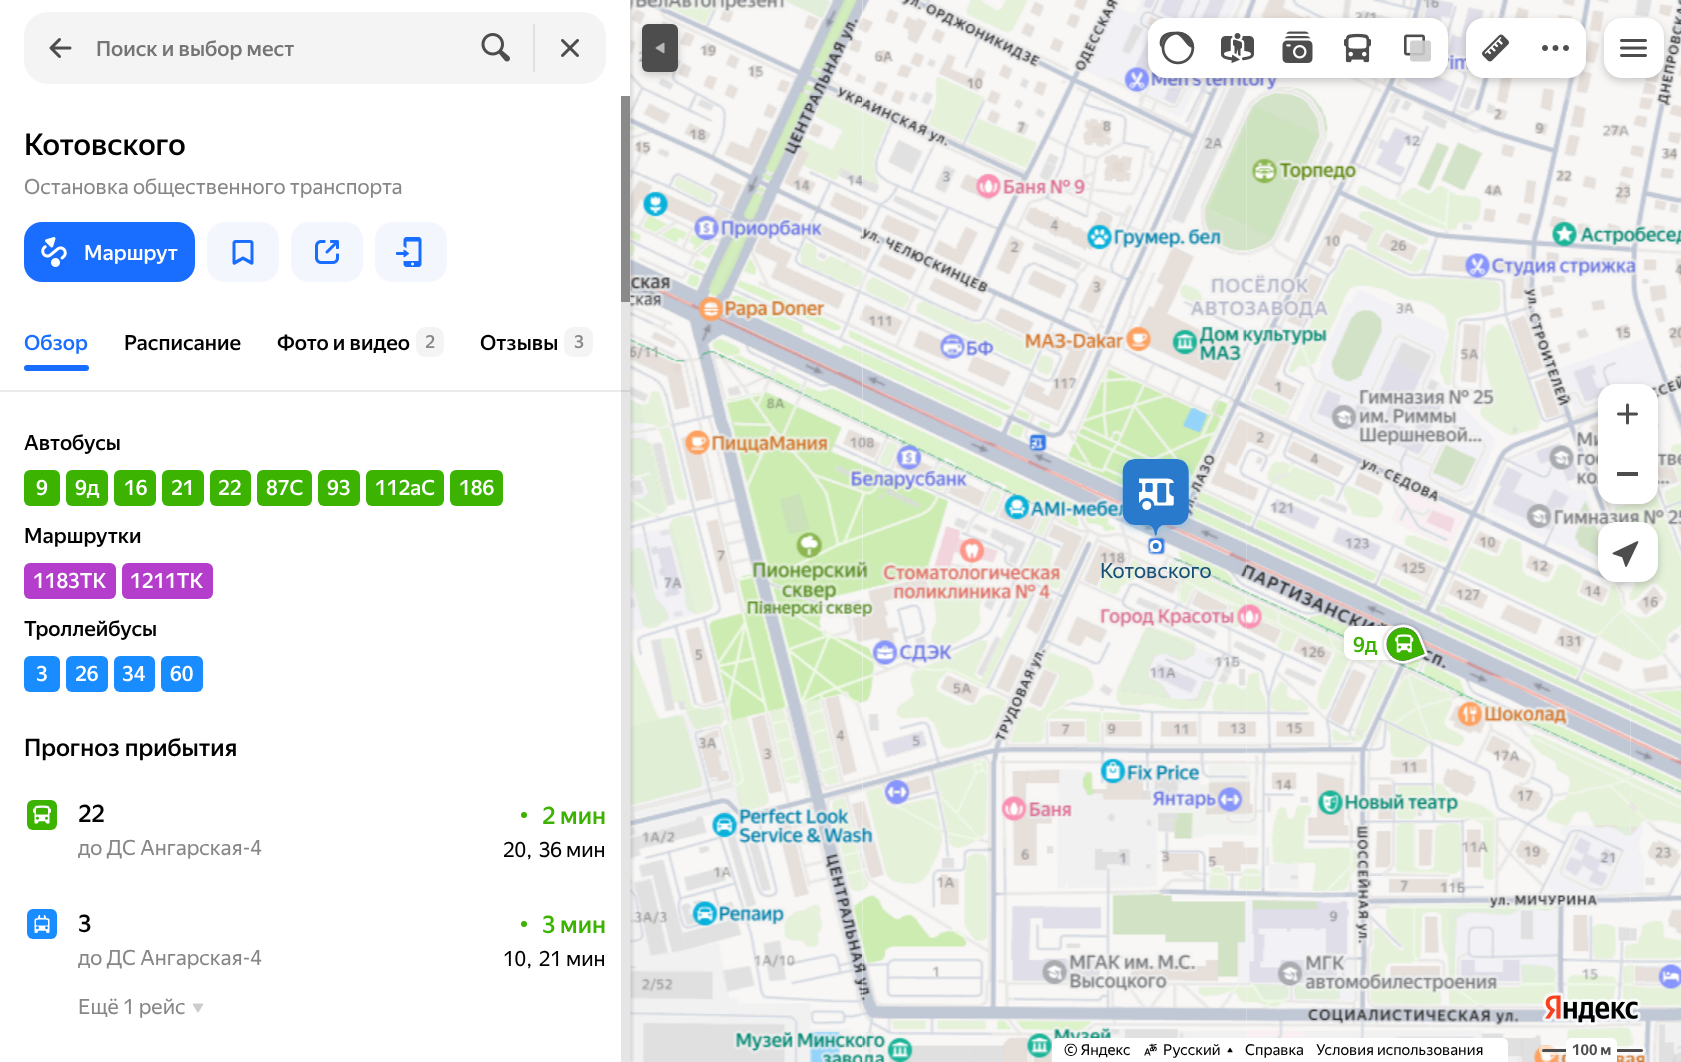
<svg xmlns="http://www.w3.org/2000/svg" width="1681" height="1062">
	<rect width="100%" height="100%" fill="#FFFFFF" />
	<image x="630" y="0" width="1001" height="1062" href="assets/img1.png" />
	<image x="630" y="0" width="233" height="108" href="assets/img26.png" />
	<image x="630" y="108" width="233" height="384" href="assets/img30.png" />
	<image x="862" y="492" width="385" height="384" href="assets/img35.png" />
	<image x="630" y="492" width="233" height="384" href="assets/img34.png" />
	<image x="630" y="876" width="233" height="186" href="assets/img38.png" />
	<rect x="3" y="0" width="630" height="1062" fill="#000000" fill-opacity="0.1" filter="blur(1.5px)" />
	<rect x="642" y="27" width="36" height="48" rx="6" fill="#000000" fill-opacity="0.2" filter="blur(4.5px)" />
	<rect x="1" y="0" width="629" height="1062" fill="#FFFFFF" />
	<rect x="24" y="12" width="582" height="72" rx="24" fill="#F4F4F4" />
	<image x="49" y="38" width="23" height="20" href="assets/img2.png" />
	<text x="96" y="56" font-family="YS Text" font-size="21" font-weight="500" fill="#757575">Поиск и выбор мест</text>
	<image x="481" y="33" width="29" height="29" href="assets/img3.png" />
	<rect x="533" y="24" width="2" height="48" fill="#E0E0E0" />
	<image x="561" y="39" width="18" height="18" href="assets/img4.png" />
	<image x="862" y="0" width="385" height="108" href="assets/img27.png" />
	<image x="1246" y="0" width="385" height="108" href="assets/img28.png" />
	<rect x="1148" y="21" width="300" height="60" rx="18" fill="#000000" fill-opacity="0.2" filter="blur(4.5px)" />
	<path d="M1166 18H1208V78H1166C1156 78 1148 70 1148 60V36C1148 26 1156 18 1166 18Z" fill="#FFFFFF" />
	<image x="1159" y="31" width="36" height="34" href="assets/img5.png" />
	<rect x="1208" y="18" width="180" height="60" fill="#FFFFFF" />
	<image x="1221" y="33" width="33" height="30" href="assets/img6.png" />
	<path d="M1388 18H1430C1440 18 1448 26 1448 36V60C1448 70 1440 78 1430 78H1388Z" fill="#FFFFFF" />
	<image x="1404" y="34" width="27" height="28" href="assets/img7.png" />
	<image x="1282" y="31" width="31" height="32" href="assets/img8.png" />
	<image x="1344" y="33" width="27" height="30" href="assets/img9.png" />
	<rect x="1466" y="21" width="120" height="60" rx="18" fill="#000000" fill-opacity="0.2" filter="blur(4.5px)" />
	<path d="M1484 18H1526V78H1484C1474 78 1466 70 1466 60V36C1466 26 1474 18 1484 18Z" fill="#FFFFFF" />
	<image x="1482" y="34" width="27" height="28" href="assets/img10.png" />
	<path d="M1526 18H1568C1578 18 1586 26 1586 36V60C1586 70 1578 78 1568 78H1526Z" fill="#FFFFFF" />
	<image x="1542" y="45" width="27" height="6" href="assets/img11.png" />
	<image x="1630" y="0" width="51" height="108" href="assets/img29.png" />
	<rect x="1604" y="21" width="60" height="60" rx="18" fill="#000000" fill-opacity="0.2" filter="blur(4.5px)" />
	<rect x="1604" y="18" width="60" height="60" rx="18" fill="#FFFFFF" />
	<image x="1620" y="39" width="27" height="18" href="assets/img12.png" />
	<image x="862" y="108" width="385" height="384" href="assets/img31.png" />
	<image x="1246" y="108" width="385" height="384" href="assets/img32.png" />
	<image x="1630" y="108" width="51" height="384" href="assets/img33.png" />
	<image x="1246" y="492" width="385" height="384" href="assets/img36.png" />
	<image x="1630" y="492" width="51" height="384" href="assets/img37.png" />
	<rect x="1598" y="387" width="60" height="120" rx="18" fill="#000000" fill-opacity="0.2" filter="blur(4.5px)" />
	<path d="M1616 384H1640C1650 384 1658 392 1658 402V444H1598V402C1598 392 1606 384 1616 384Z" fill="#FFFFFF" />
	<image x="1617" y="403" width="21" height="22" href="assets/img13.png" />
	<path d="M1598 444H1658V486C1658 496 1650 504 1640 504H1616C1606 504 1598 496 1598 486Z" fill="#FFFFFF" />
	<rect x="1617" y="472" width="21" height="4" fill="#4D4D4D" />
	<rect x="1598" y="525" width="60" height="60" rx="18" fill="#000000" fill-opacity="0.2" filter="blur(4.5px)" />
	<rect x="1598" y="522" width="60" height="60" rx="18" fill="#FFFFFF" />
	<image x="1612" y="541" width="27" height="26" href="assets/img14.png" />
	<rect x="642" y="24" width="36" height="48" rx="6" fill="#4D4D4D" />
	<image x="655" y="42" width="10" height="12" href="assets/img15.png" />
	<text x="24" y="155" font-family="YS Text" font-size="30" font-weight="500" fill="#000000">Котовского</text>
	<text x="24" y="194" font-family="YS Text" font-size="21" fill="#878787">Остановка общественного транспорта</text>
	<rect x="24" y="222" width="171" height="60" rx="18" fill="#196DFF" />
	<image x="41" y="237" width="26" height="30" href="assets/img16.png" />
	<text x="84" y="260" font-family="YS Text" font-size="21" font-weight="500" fill="#FFFFFF">Маршрут</text>
	<rect x="207" y="222" width="72" height="60" rx="18" fill="#F3F6FC" />
	<image x="232" y="240" width="22" height="25" href="assets/img17.png" />
	<rect x="291" y="222" width="72" height="60" rx="18" fill="#F3F6FC" />
	<image x="315" y="240" width="24" height="24" href="assets/img18.png" />
	<rect x="375" y="222" width="72" height="60" rx="18" fill="#F3F6FC" />
	<image x="396" y="237" width="26" height="30" href="assets/img19.png" />
	<text x="24" y="350" font-family="YS Text" font-size="21" font-weight="500" fill="#196DFF">Обзор</text>
	<g font-family="YS Text" font-size="21" font-weight="500" fill="#000000">
		<text x="124" y="350">Расписание</text>
		<text x="277" y="350">Фото и видео</text>
	</g>
	<rect x="416" y="327" width="28" height="30" rx="9" fill="#F4F4F4" />
	<text x="425" y="348" font-family="YS Text" font-size="18" font-weight="500" fill="#878787">2</text>
	<text x="480" y="350" font-family="YS Text" font-size="21" font-weight="500" fill="#000000">Отзывы</text>
	<rect x="564" y="327" width="29" height="30" rx="9" fill="#F4F4F4" />
	<text x="574" y="348" font-family="YS Text" font-size="18" font-weight="500" fill="#878787">3</text>
	<rect x="24" y="365" width="65" height="6" rx="3" fill="#196DFF" />
	<rect x="0" y="390" width="630" height="2" fill="#EBEBEB" />
	<text x="24" y="450" font-family="YS Text" font-size="21" font-weight="500" fill="#000000">Автобусы</text>
	<rect x="24" y="470" width="36" height="36" rx="6" fill="#3BB300" />
	<text x="36" y="495" font-family="YS Text" font-size="21" font-weight="500" fill="#FFFFFF">9</text>
	<rect x="66" y="470" width="42" height="36" rx="6" fill="#3BB300" />
	<text x="75" y="495" font-family="YS Text" font-size="21" font-weight="500" fill="#FFFFFF">9д</text>
	<rect x="114" y="470" width="42" height="36" rx="6" fill="#3BB300" />
	<text x="124" y="495" font-family="YS Text" font-size="21" font-weight="500" fill="#FFFFFF">16</text>
	<rect x="162" y="470" width="42" height="36" rx="6" fill="#3BB300" />
	<text x="171" y="495" font-family="YS Text" font-size="21" font-weight="500" fill="#FFFFFF">21</text>
	<rect x="210" y="470" width="41" height="36" rx="6" fill="#3BB300" />
	<text x="218" y="495" font-family="YS Text" font-size="21" font-weight="500" fill="#FFFFFF">22</text>
	<rect x="257" y="470" width="55" height="36" rx="6" fill="#3BB300" />
	<text x="266" y="495" font-family="YS Text" font-size="21" font-weight="500" fill="#FFFFFF">87С</text>
	<rect x="318" y="470" width="42" height="36" rx="6" fill="#3BB300" />
	<text x="327" y="495" font-family="YS Text" font-size="21" font-weight="500" fill="#FFFFFF">93</text>
	<rect x="366" y="470" width="78" height="36" rx="6" fill="#3BB300" />
	<text x="375" y="495" font-family="YS Text" font-size="21" font-weight="500" fill="#FFFFFF">112аС</text>
	<rect x="450" y="470" width="53" height="36" rx="6" fill="#3BB300" />
	<text x="459" y="495" font-family="YS Text" font-size="21" font-weight="500" fill="#FFFFFF">186</text>
	<text x="24" y="543" font-family="YS Text" font-size="21" font-weight="500" fill="#000000">Маршрутки</text>
	<rect x="24" y="563" width="92" height="36" rx="6" fill="#B43DCC" />
	<text x="33" y="588" font-family="YS Text" font-size="21" font-weight="500" fill="#FFFFFF">1183ТК</text>
	<rect x="122" y="563" width="91" height="36" rx="6" fill="#B43DCC" />
	<text x="130" y="588" font-family="YS Text" font-size="21" font-weight="500" fill="#FFFFFF">1211ТК</text>
	<text x="24" y="636" font-family="YS Text" font-size="21" font-weight="500" fill="#000000">Троллейбусы</text>
	<rect x="24" y="656" width="36" height="36" rx="6" fill="#198CFF" />
	<text x="36" y="681" font-family="YS Text" font-size="21" font-weight="500" fill="#FFFFFF">3</text>
	<rect x="66" y="656" width="42" height="36" rx="6" fill="#198CFF" />
	<text x="75" y="681" font-family="YS Text" font-size="21" font-weight="500" fill="#FFFFFF">26</text>
	<rect x="114" y="656" width="41" height="36" rx="6" fill="#198CFF" />
	<text x="122" y="681" font-family="YS Text" font-size="21" font-weight="500" fill="#FFFFFF">34</text>
	<rect x="161" y="656" width="42" height="36" rx="6" fill="#198CFF" />
	<text x="170" y="681" font-family="YS Text" font-size="21" font-weight="500" fill="#FFFFFF">60</text>
	<text x="24" y="756" font-family="YS Text" font-size="24" font-weight="500" fill="#000000">Прогноз прибытия</text>
	<rect x="27" y="800" width="30" height="30" rx="6" fill="#3BB300" />
	<image x="33" y="805" width="18" height="19" href="assets/img20.png" />
	<text x="78" y="822" font-family="YS Text" font-size="24" font-weight="500" fill="#000000">22</text>
	<text x="78" y="855" font-family="YS Text" font-size="21" fill="#878787">до ДС Ангарская-4</text>
	<circle cx="524" cy="815" r="3" fill="#3BB300" />
	<text x="542" y="824" font-family="YS Text" font-size="24" font-weight="500" fill="#3BB300">2 мин</text>
	<text x="503" y="857" font-family="YS Text" font-size="21" fill="#000000">20, 36 мин</text>
	<rect x="27" y="909" width="30" height="30" rx="6" fill="#198CFF" />
	<image x="34" y="915" width="16" height="18" href="assets/img21.png" />
	<text x="78" y="932" font-family="YS Text" font-size="24" font-weight="500" fill="#000000">3</text>
	<text x="78" y="965" font-family="YS Text" font-size="21" fill="#878787">до ДС Ангарская-4</text>
	<circle cx="524" cy="924" r="3" fill="#3BB300" />
	<text x="542" y="933" font-family="YS Text" font-size="24" font-weight="500" fill="#3BB300">3 мин</text>
	<text x="503" y="966" font-family="YS Text" font-size="21" fill="#000000">10, 21 мин</text>
	<text x="78" y="1014" font-family="YS Text" font-size="21" fill="#878787">Ещё 1 рейс</text>
	<image x="192" y="1003" width="12" height="10" href="assets/img22.png" />
	<rect x="621" y="96" width="9" height="206" fill="#8A8A8A" />
	<rect x="621" y="302" width="9" height="760" fill="#000000" fill-opacity="0.1" />
	<image x="862" y="876" width="385" height="186" href="assets/img39.png" />
	<image x="1246" y="876" width="385" height="186" href="assets/img40.png" />
	<image x="1630" y="876" width="51" height="186" href="assets/img41.png" />
	<image x="1542" y="992" width="99" height="34" href="assets/img23.png" />
	<path d="M1058 1038H1502C1505.5 1038 1508 1040.5 1508 1044V1062H1052V1044C1052 1040.5 1054.5 1038 1058 1038Z" fill="#FFFFFF" />
	<text x="1064" y="1055" font-family="YS Text" font-size="15" fill="#000000">© Яндекс</text>
	<image x="1144" y="1043" width="13" height="13" href="assets/img24.png" />
	<text x="1163" y="1055" font-family="YS Text" font-size="15" fill="#000000">Русский</text>
	<image x="1227" y="1047" width="6" height="6" href="assets/img25.png" />
	<g font-family="YS Text" font-size="15" fill="#000000">
		<text x="1245" y="1055">Справка</text>
		<text x="1316" y="1055">Условия использования</text>
	</g>
	<rect x="1539" y="1046" width="107" height="9" rx="4.5" fill="#FFFFFF" fill-opacity="0.6" />
	<rect x="1542" y="1049" width="101" height="3" rx="1.5" fill="#4D4D4D" />
	<path d="M1572 1038H1611C1614.5 1038 1617 1040.5 1617 1044V1062H1566V1044C1566 1040.5 1568.5 1038 1572 1038Z" fill="#FFFFFF" />
	<text x="1572" y="1055" font-family="YS Text" font-size="15" font-weight="700" fill="#4D4D4D">100 м</text>
	<image x="1116" y="455" width="79" height="97" href="assets/img42.png" />
	<image x="1139" y="478" width="35" height="32" href="assets/img43.png" />
	<text x="1100" y="578" font-family="YS Text" font-size="21" fill="#175078">Котовского</text>
	<rect x="1344" y="626" width="60" height="34" rx="9" fill="#000000" fill-opacity="0.1" filter="blur(3px)" />
	<rect x="1344" y="626" width="60" height="34" rx="9" fill="#FFFFFF" />
	<image x="1381" y="622" width="49" height="44" href="assets/img44.png" />
	<text x="1353" y="652" font-family="YS Text" font-size="21" font-weight="500" fill="#3BB300">9д</text>
	<image x="1395" y="634" width="19" height="19" href="assets/img45.png" />
</svg>
